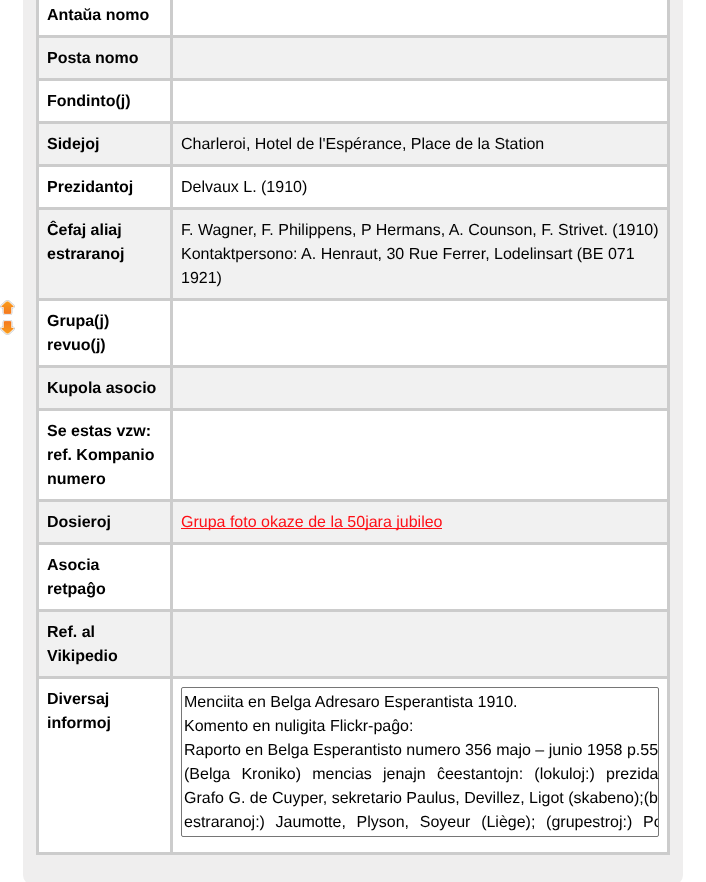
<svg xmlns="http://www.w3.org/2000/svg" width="706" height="882">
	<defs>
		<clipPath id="clip1"><rect x="182" y="688" width="476" height="148" /></clipPath>
	</defs>
	<rect width="100%" height="100%" fill="#FFFFFF" />
	<image x="0" y="300" width="15" height="15" href="assets/img1.png" />
	<image x="0" y="320" width="15" height="15" href="assets/img2.png" />
	<rect x="23" y="-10" width="660" height="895" rx="10" fill="#EFEEEE" />
	<rect x="39" y="0" width="628" height="35" fill="#FFFFFF" />
	<text x="47" y="20" font-family="Liberation Sans" font-size="16" font-weight="700" fill="#000000">Antaŭa nomo</text>
	<rect x="170" y="35" width="500" height="3" fill="#CCCCCC" />
	<rect x="39" y="38" width="628" height="40" fill="#F1F1F1" />
	<rect x="170" y="78" width="500" height="3" fill="#CCCCCC" />
	<rect x="39" y="81" width="628" height="40" fill="#FFFFFF" />
	<rect x="170" y="121" width="500" height="3" fill="#CCCCCC" />
	<rect x="39" y="124" width="628" height="40" fill="#F1F1F1" />
	<rect x="170" y="164" width="500" height="3" fill="#CCCCCC" />
	<rect x="39" y="167" width="628" height="40" fill="#FFFFFF" />
	<rect x="170" y="207" width="500" height="3" fill="#CCCCCC" />
	<rect x="39" y="210" width="628" height="88" fill="#F1F1F1" />
	<rect x="170" y="298" width="500" height="3" fill="#CCCCCC" />
	<rect x="39" y="301" width="628" height="64" fill="#FFFFFF" />
	<rect x="170" y="365" width="500" height="3" fill="#CCCCCC" />
	<rect x="39" y="368" width="628" height="40" fill="#F1F1F1" />
	<rect x="170" y="408" width="500" height="3" fill="#CCCCCC" />
	<rect x="39" y="411" width="628" height="88" fill="#FFFFFF" />
	<rect x="170" y="499" width="500" height="3" fill="#CCCCCC" />
	<rect x="39" y="502" width="628" height="40" fill="#F1F1F1" />
	<rect x="170" y="542" width="500" height="3" fill="#CCCCCC" />
	<rect x="39" y="545" width="628" height="64" fill="#FFFFFF" />
	<rect x="170" y="609" width="500" height="3" fill="#CCCCCC" />
	<rect x="39" y="612" width="628" height="64" fill="#F1F1F1" />
	<rect x="170" y="676" width="500" height="3" fill="#CCCCCC" />
	<rect x="39" y="679" width="628" height="173" fill="#FFFFFF" />
	<rect x="667" y="676" width="3" height="179" fill="#CCCCCC" />
	<rect x="170" y="852" width="500" height="3" fill="#CCCCCC" />
	<rect x="170" y="676" width="3" height="179" fill="#CCCCCC" />
	<rect x="36" y="676" width="137" height="3" fill="#CCCCCC" />
	<rect x="170" y="609" width="3" height="70" fill="#CCCCCC" />
	<rect x="36" y="609" width="137" height="3" fill="#CCCCCC" />
	<rect x="170" y="542" width="3" height="70" fill="#CCCCCC" />
	<rect x="36" y="542" width="137" height="3" fill="#CCCCCC" />
	<rect x="170" y="499" width="3" height="46" fill="#CCCCCC" />
	<rect x="36" y="499" width="137" height="3" fill="#CCCCCC" />
	<rect x="170" y="408" width="3" height="94" fill="#CCCCCC" />
	<rect x="36" y="408" width="137" height="3" fill="#CCCCCC" />
	<rect x="170" y="365" width="3" height="46" fill="#CCCCCC" />
	<rect x="36" y="365" width="137" height="3" fill="#CCCCCC" />
	<rect x="170" y="298" width="3" height="70" fill="#CCCCCC" />
	<rect x="36" y="298" width="137" height="3" fill="#CCCCCC" />
	<rect x="170" y="207" width="3" height="94" fill="#CCCCCC" />
	<rect x="36" y="207" width="137" height="3" fill="#CCCCCC" />
	<rect x="170" y="164" width="3" height="46" fill="#CCCCCC" />
	<rect x="36" y="164" width="137" height="3" fill="#CCCCCC" />
	<rect x="170" y="121" width="3" height="46" fill="#CCCCCC" />
	<rect x="36" y="121" width="137" height="3" fill="#CCCCCC" />
	<rect x="170" y="78" width="3" height="46" fill="#CCCCCC" />
	<rect x="36" y="78" width="137" height="3" fill="#CCCCCC" />
	<rect x="170" y="35" width="3" height="46" fill="#CCCCCC" />
	<rect x="36" y="35" width="137" height="3" fill="#CCCCCC" />
	<rect x="170" y="0" width="3" height="38" fill="#CCCCCC" />
	<rect x="36" y="852" width="137" height="3" fill="#CCCCCC" />
	<rect x="36" y="676" width="3" height="179" fill="#CCCCCC" />
	<rect x="36" y="609" width="3" height="70" fill="#CCCCCC" />
	<rect x="36" y="542" width="3" height="70" fill="#CCCCCC" />
	<rect x="36" y="499" width="3" height="46" fill="#CCCCCC" />
	<rect x="36" y="408" width="3" height="94" fill="#CCCCCC" />
	<rect x="36" y="365" width="3" height="46" fill="#CCCCCC" />
	<rect x="36" y="298" width="3" height="70" fill="#CCCCCC" />
	<rect x="36" y="207" width="3" height="94" fill="#CCCCCC" />
	<rect x="36" y="164" width="3" height="46" fill="#CCCCCC" />
	<rect x="36" y="121" width="3" height="46" fill="#CCCCCC" />
	<rect x="36" y="78" width="3" height="46" fill="#CCCCCC" />
	<rect x="36" y="0" width="3" height="81" fill="#CCCCCC" />
	<text x="47" y="63" font-family="Liberation Sans" font-size="16" font-weight="700" fill="#000000">Posta nomo</text>
	<rect x="667" y="609" width="3" height="70" fill="#CCCCCC" />
	<rect x="667" y="542" width="3" height="70" fill="#CCCCCC" />
	<rect x="667" y="499" width="3" height="46" fill="#CCCCCC" />
	<rect x="667" y="408" width="3" height="94" fill="#CCCCCC" />
	<rect x="667" y="365" width="3" height="46" fill="#CCCCCC" />
	<rect x="667" y="298" width="3" height="70" fill="#CCCCCC" />
	<rect x="667" y="207" width="3" height="94" fill="#CCCCCC" />
	<rect x="667" y="164" width="3" height="46" fill="#CCCCCC" />
	<rect x="667" y="121" width="3" height="46" fill="#CCCCCC" />
	<rect x="667" y="78" width="3" height="46" fill="#CCCCCC" />
	<rect x="667" y="0" width="3" height="81" fill="#CCCCCC" />
	<g font-family="Liberation Sans" font-size="16" font-weight="700" fill="#000000">
		<text x="47" y="106">Fondinto(j)</text>
		<text x="47" y="149">Sidejoj</text>
	</g>
	<text x="181" y="149" font-family="Liberation Sans" font-size="16" fill="#000000">Charleroi, Hotel de l'Espérance, Place de la Station</text>
	<text x="47" y="192" font-family="Liberation Sans" font-size="16" font-weight="700" fill="#000000">Prezidantoj</text>
	<text x="181" y="192" font-family="Liberation Sans" font-size="16" fill="#000000">Delvaux L. (1910)</text>
	<g font-family="Liberation Sans" font-size="16" font-weight="700" fill="#000000">
		<text x="47" y="235">Ĉefaj aliaj</text>
		<text x="47" y="259">estraranoj</text>
	</g>
	<g font-family="Liberation Sans" font-size="16" fill="#000000">
		<text x="181" y="235">F. Wagner, F. Philippens, P Hermans, A. Counson, F. Strivet. (1910)</text>
		<text x="181" y="259">Kontaktpersono: A. Henraut, 30 Rue Ferrer, Lodelinsart (BE 071</text>
		<text x="181" y="283">1921)</text>
	</g>
	<g font-family="Liberation Sans" font-size="16" font-weight="700" fill="#000000">
		<text x="47" y="326">Grupa(j)</text>
		<text x="47" y="350">revuo(j)</text>
		<text x="47" y="393">Kupola asocio</text>
		<text x="47" y="436">Se estas vzw:</text>
		<text x="47" y="460">ref. Kompanio</text>
		<text x="47" y="484">numero</text>
		<text x="47" y="527">Dosieroj</text>
	</g>
	<rect x="181" y="528" width="261" height="1" fill="#FE0F16" />
	<text x="181" y="527" font-family="Liberation Sans" font-size="16" fill="#FE0F16">Grupa foto okaze de la 50jara jubileo</text>
	<g font-family="Liberation Sans" font-size="16" font-weight="700" fill="#000000">
		<text x="47" y="570">Asocia</text>
		<text x="47" y="594">retpaĝo</text>
		<text x="47" y="637">Ref. al</text>
		<text x="47" y="661">Vikipedio</text>
		<text x="47" y="704">Diversaj</text>
		<text x="47" y="728">informoj</text>
	</g>
	<rect x="181.5" y="687.5" width="477" height="149" rx="1.5" fill="none" stroke="#767676" />
	<g font-family="Liberation Sans" font-size="16" fill="#000000">
		<text x="184" y="707">Menciita en Belga Adresaro Esperantista 1910.</text>
		<text x="184" y="731">Komento en nuligita Flickr-paĝo:</text>
		<text x="184" y="755">Raporto en Belga Esperantisto numero 356 majo – junio 1958 p.55</text>
		<text x="184" y="779" word-spacing="6.75">(Belga Kroniko) mencias jenajn ĉeestantojn: (lokuloj:)</text>
		<text x="606" y="779">prezida</text>
		<text x="184" y="803">Grafo G. de Cuyper, sekretario Paulus, Devillez, Ligot (skabeno);(b</text>
		<text x="184" y="827" word-spacing="6.25">estraranoj:) Jaumotte, Plyson, Soyeur (Liège); (grupestroj:)</text>
	</g>
	<g clip-path="url(#clip1)">
		<text x="643" y="827" font-family="Liberation Sans" font-size="16" fill="#000000">Po</text>
	</g>
</svg>
